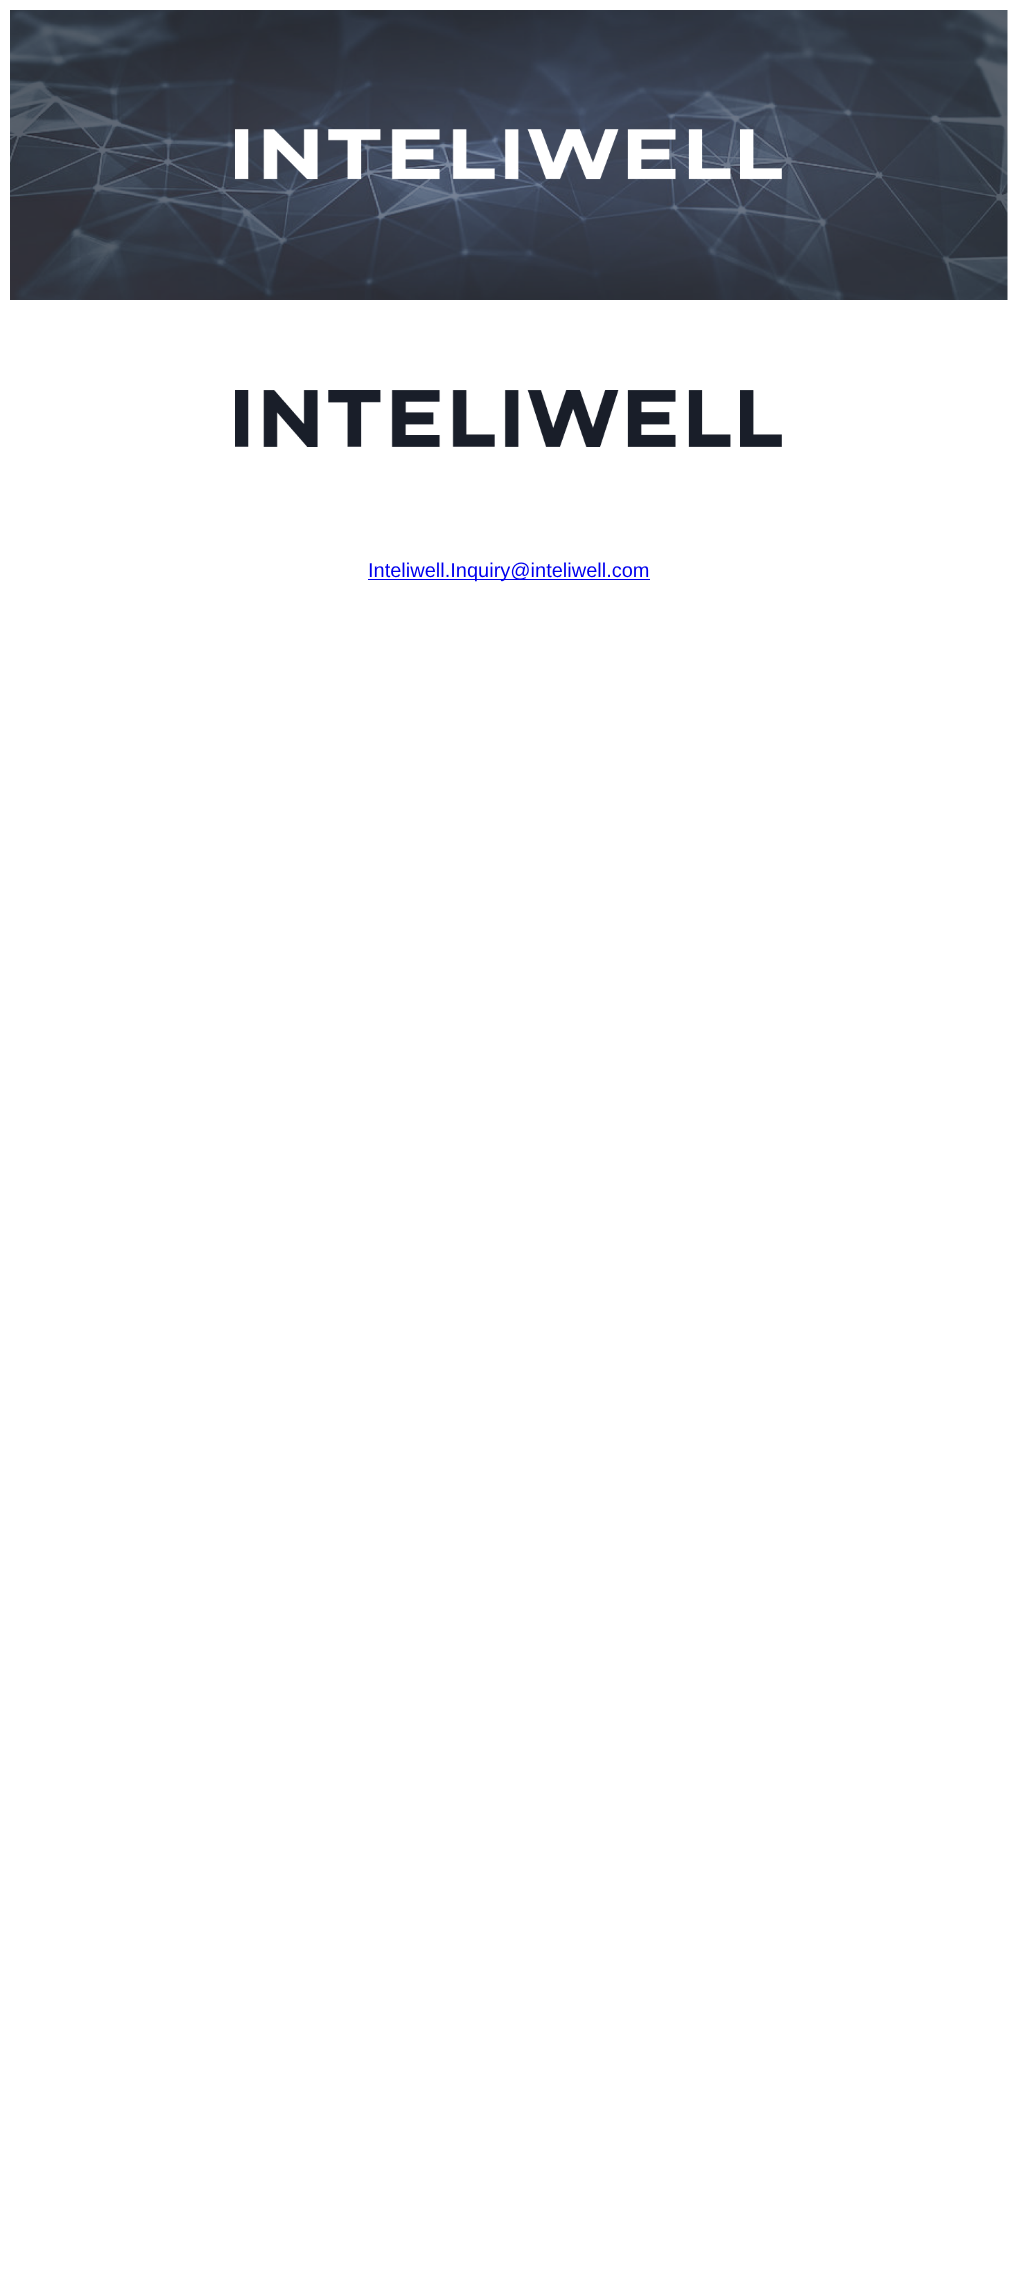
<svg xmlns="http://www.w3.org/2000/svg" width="1017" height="2277">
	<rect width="100%" height="100%" fill="#FFFFFF" />
	<image x="10" y="10" width="998" height="437" href="assets/img1.png" />
	<rect x="368" y="579" width="282" height="1" fill="#0000EE" />
	<text x="368" y="577" font-family="Liberation Sans" font-size="20" fill="#0000EE">Inteliwell.Inquiry@inteliwell.com</text>
</svg>
